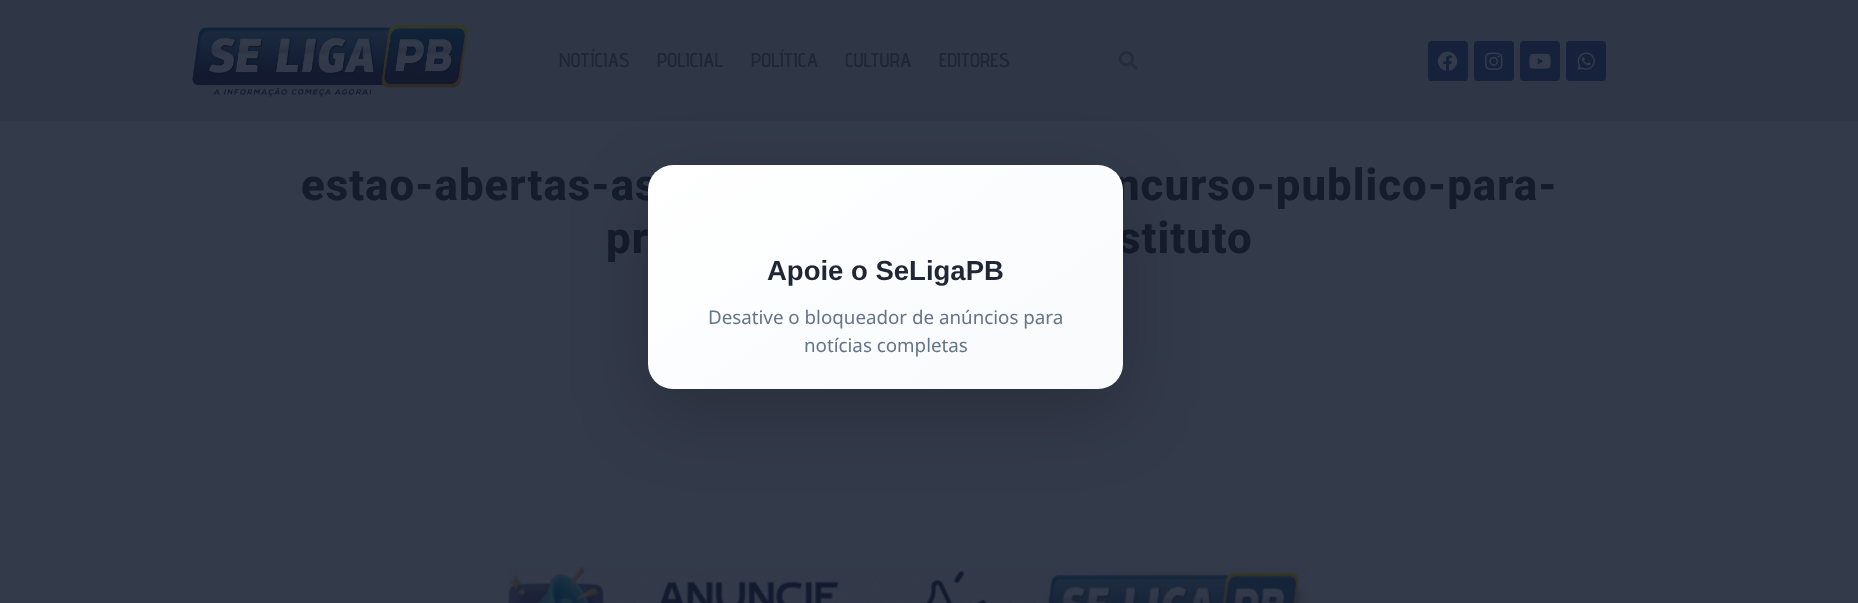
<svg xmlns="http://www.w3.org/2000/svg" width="1858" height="603">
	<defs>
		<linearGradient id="g1" gradientUnits="userSpaceOnUse" x1="754" y1="91" x2="1017" y2="466"><stop offset="0" stop-color="#FFFFFF" /><stop offset="1" stop-color="#F8FAFC" /></linearGradient>
	</defs>
	<rect width="100%" height="100%" fill="#333A4A" />
	<rect x="0" y="0" width="1858" height="121" fill="#2F3646" />
	<image x="192" y="25" width="276" height="72" href="assets/img1.png" />
	<g font-family="Advent Pro" font-size="20" font-weight="600" fill="#1F2636">
		<text x="559" y="67">NOTÍCIAS</text>
		<text x="657" y="67">POLICIAL</text>
		<text x="751" y="67">POLÍTICA</text>
		<text x="845" y="67">CULTURA</text>
		<text x="939" y="67">EDITORES</text>
	</g>
	<image x="1118" y="51" width="20" height="19" href="assets/img2.png" />
	<rect x="1428" y="41" width="40" height="40" rx="4" fill="#16223B" />
	<image x="1437" y="51" width="21" height="20" href="assets/img3.png" />
	<rect x="1474" y="41" width="40" height="40" rx="4" fill="#16223B" />
	<image x="1485" y="52" width="18" height="18" href="assets/img4.png" />
	<rect x="1520" y="41" width="40" height="40" rx="4" fill="#16223B" />
	<image x="1529" y="53" width="22" height="16" href="assets/img5.png" />
	<rect x="1566" y="41" width="40" height="40" rx="4" fill="#16223B" />
	<image x="1577" y="52" width="18" height="18" href="assets/img6.png" />
	<g font-family="Roboto" font-size="43.75" font-weight="800" letter-spacing="1" fill="#151C2C">
		<text x="301" y="200">estao-abertas-as</text>
		<text x="1115" y="200">ncurso-publico-para-</text>
		<text x="606" y="253">pr</text>
		<text x="1118" y="253">stituto</text>
	</g>
	<image x="507" y="567" width="801" height="36" href="assets/img7.png" />
	<rect x="648" y="190" width="475" height="224" rx="25" fill="#000000" fill-opacity="0.2" filter="blur(37.5px)" />
	<rect x="648" y="165" width="475" height="224" rx="25" fill="url(#g1)" />
	<text x="767" y="280" font-family="Liberation Sans" font-size="27.5" font-weight="700" fill="#1F2636">Apoie o SeLigaPB</text>
	<g font-family="Noto Sans" font-size="18.75" fill="#64748B">
		<text x="708" y="324">Desative o bloqueador de anúncios para</text>
		<text x="804" y="352">notícias completas</text>
	</g>
</svg>
